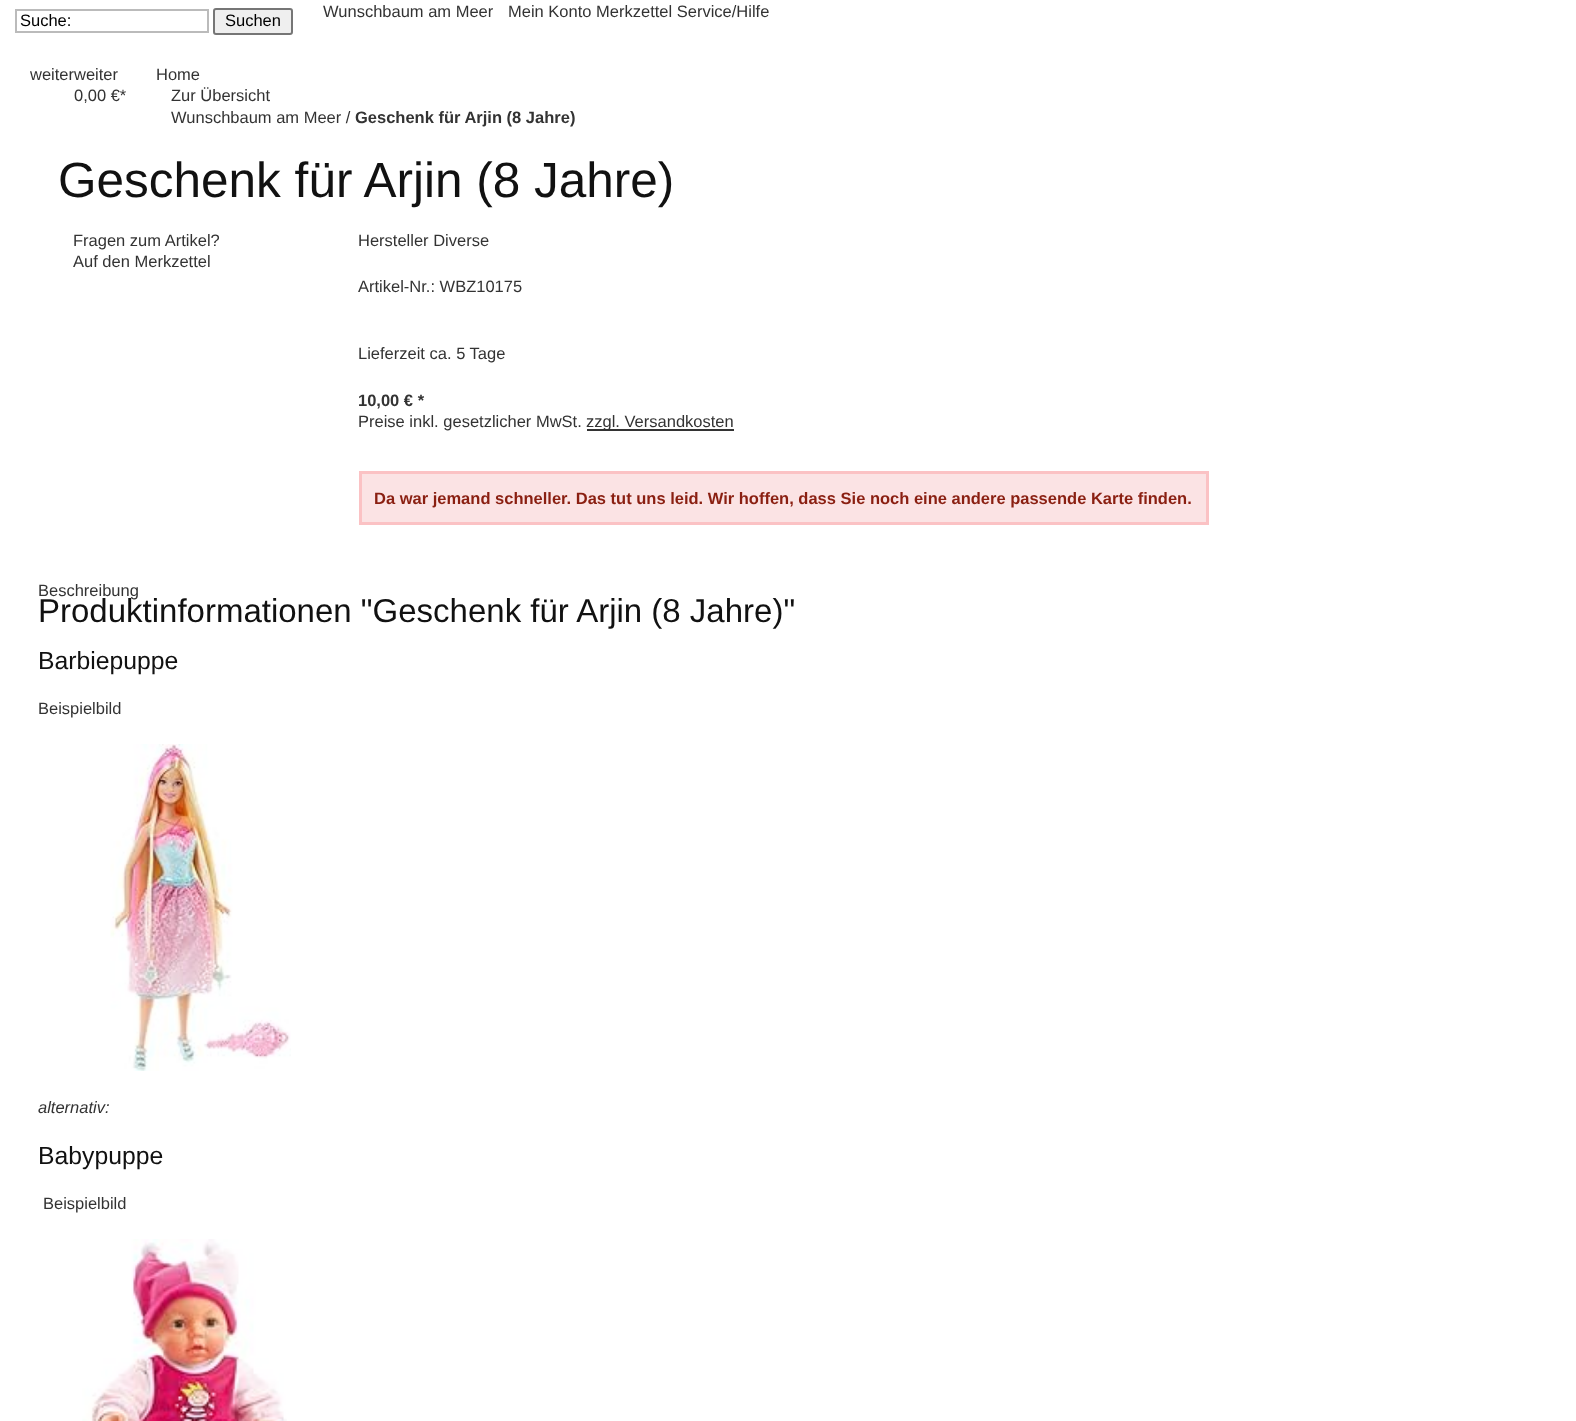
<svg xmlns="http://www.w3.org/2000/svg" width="1576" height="1421">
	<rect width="100%" height="100%" fill="#FFFFFF" />
	<g font-family="Liberation Sans" font-size="16.5" fill="#333333">
		<text x="323" y="17">Wunschbaum am Meer</text>
		<text x="508" y="17">Mein Konto Merkzettel Service/Hilfe</text>
	</g>
	<rect x="16" y="10" width="192" height="22" fill="none" stroke="#BBBBBB" stroke-width="2" />
	<text x="20" y="26" font-family="Liberation Sans" font-size="16.5" fill="#000000">Suche:</text>
	<rect x="214" y="9" width="78" height="25" rx="2" fill="#EFEFEF" stroke="#767676" stroke-width="2" />
	<text x="225" y="26" font-family="Liberation Sans" font-size="16.5" fill="#000000">Suchen</text>
	<g font-family="Liberation Sans" font-size="16.5" fill="#333333">
		<text x="30" y="80">weiterweiter</text>
		<text x="74" y="101">0,00 €*</text>
		<text x="156" y="80">Home</text>
		<text x="171" y="101">Zur Übersicht</text>
		<text x="171" y="123">Wunschbaum am Meer /</text>
	</g>
	<text x="355" y="123" font-family="Liberation Sans" font-size="16.5" font-weight="700" fill="#333333">Geschenk für Arjin (8 Jahre)</text>
	<text x="58" y="197" font-family="Liberation Sans" font-size="49.5" fill="#111111">Geschenk für Arjin (8 Jahre)</text>
	<g font-family="Liberation Sans" font-size="16.5" fill="#333333">
		<text x="73" y="246">Fragen zum Artikel?</text>
		<text x="73" y="267">Auf den Merkzettel</text>
		<text x="358" y="246">Hersteller Diverse</text>
		<text x="358" y="292">Artikel-Nr.: WBZ10175</text>
		<text x="358" y="359">Lieferzeit ca. 5 Tage</text>
	</g>
	<text x="358" y="406" font-family="Liberation Sans" font-size="16.5" font-weight="700" fill="#333333">10,00 € *</text>
	<text x="358" y="427" font-family="Liberation Sans" font-size="16.5" fill="#333333">Preise inkl. gesetzlicher MwSt.</text>
	<rect x="587" y="429" width="147" height="2" fill="#333333" />
	<text x="586" y="427" font-family="Liberation Sans" font-size="16.5" fill="#333333">zzgl. Versandkosten</text>
	<rect x="360.5" y="472.5" width="847" height="51" fill="#FBE3E4" stroke="#FBC2C4" stroke-width="3" />
	<text x="374" y="504" font-family="Liberation Sans" font-size="16.5" font-weight="700" fill="#8A1F11">Da war jemand schneller. Das tut uns leid. Wir hoffen, dass Sie noch eine andere passende Karte finden.</text>
	<text x="38" y="596" font-family="Liberation Sans" font-size="16.5" fill="#333333">Beschreibung</text>
	<text x="38" y="622" font-family="Liberation Sans" font-size="33" fill="#111111">Produktinformationen "Geschenk für Arjin (8 Jahre)"</text>
	<text x="38" y="669" font-family="Liberation Sans" font-size="24.75" fill="#111111">Barbiepuppe</text>
	<text x="38" y="714" font-family="Liberation Sans" font-size="16.5" fill="#333333">Beispielbild</text>
	<image x="110" y="744" width="181" height="327" href="assets/img1.png" />
	<text x="38" y="1113" font-family="Liberation Sans" font-size="16.5" font-style="italic" fill="#333333">alternativ:</text>
	<text x="38" y="1164" font-family="Liberation Sans" font-size="24.75" fill="#111111">Babypuppe</text>
	<text x="43" y="1209" font-family="Liberation Sans" font-size="16.5" fill="#333333">Beispielbild</text>
	<image x="82" y="1239" width="205" height="182" href="assets/img2.png" />
</svg>
